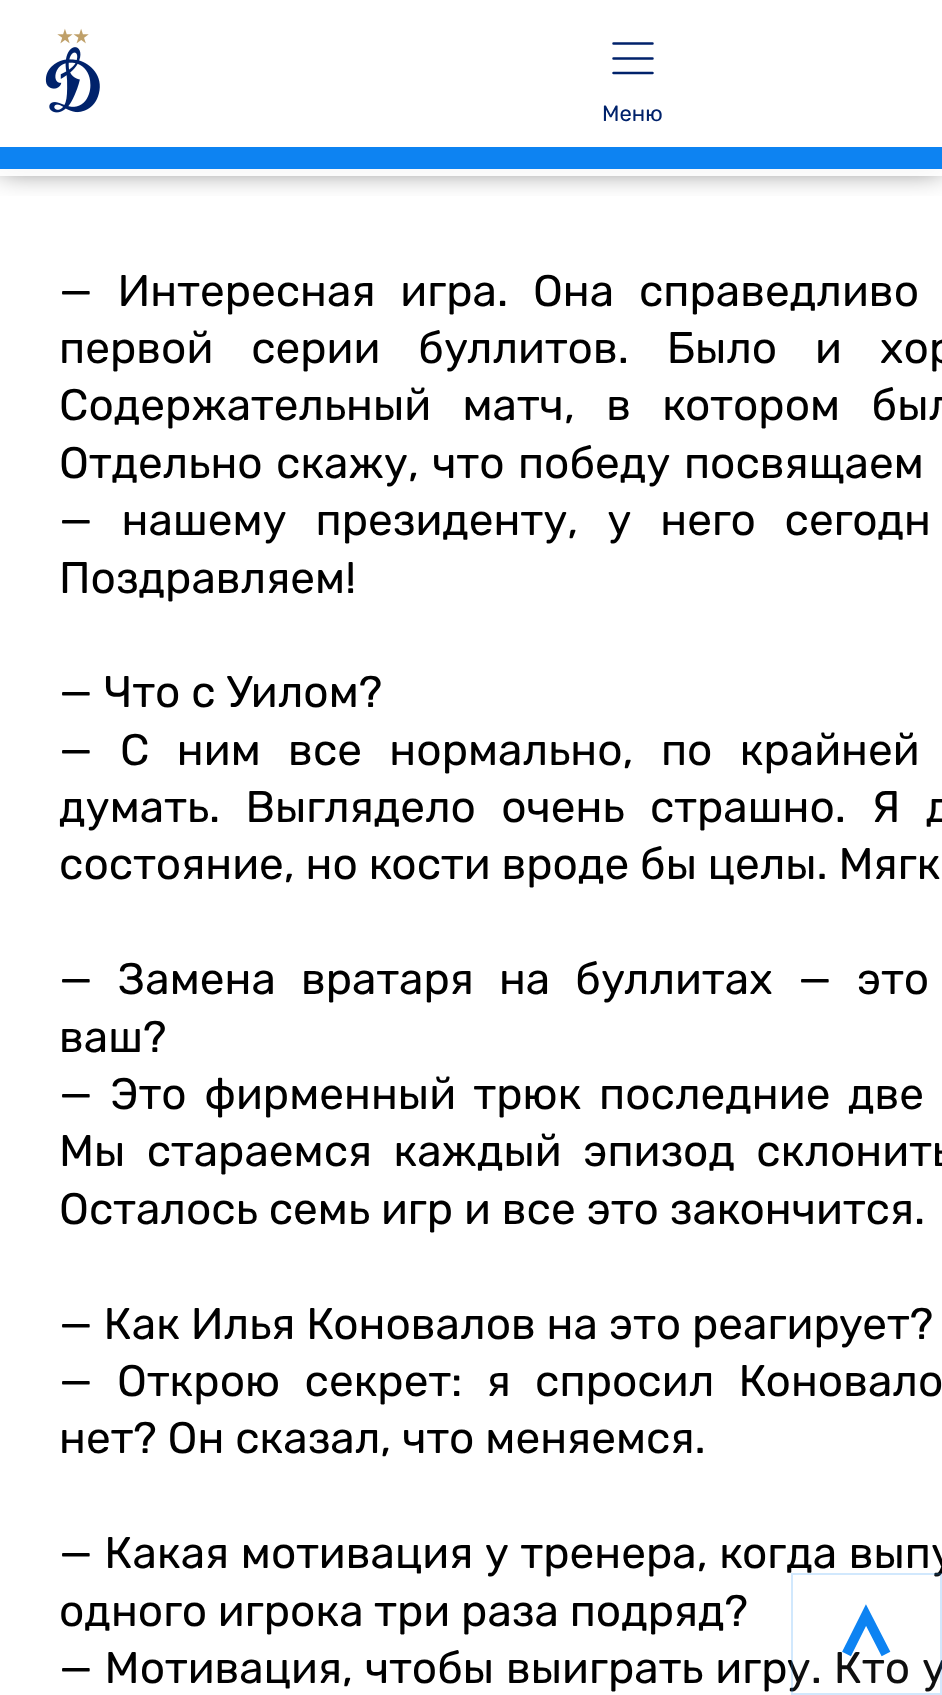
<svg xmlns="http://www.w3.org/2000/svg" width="942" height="1695">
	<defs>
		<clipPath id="clip1"><rect x="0" y="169" width="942" height="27" /></clipPath>
	</defs>
	<rect width="100%" height="100%" fill="#FFFFFF" />
	<g clip-path="url(#clip1)">
		<rect x="0" y="0" width="942" height="169" fill="#000000" fill-opacity="0.6" filter="blur(14.5px)" />
	</g>
	<rect x="0" y="147" width="942" height="22" fill="#0D83F2" />
	<rect x="-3.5" y="-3.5" width="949" height="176" fill="none" stroke="#FFFFFF" stroke-opacity="0.92" stroke-width="7" />
	<image x="45" y="28" width="55" height="85" href="assets/img1.png" />
	<path d="M613.5 43.5H652.5M613.5 58.5H652.5M613.5 73H652.5" fill="none" stroke="#00226B" stroke-width="2.5" stroke-linecap="round" stroke-linejoin="round" />
	<text x="602" y="121" font-family="Rubik" font-size="22" fill="#00226B">Меню</text>
	<g font-family="Rubik" font-size="44.2" fill="#000000">
		<text x="59" y="306" word-spacing="14">— Интересная игра. Она справедливо</text>
		<text x="59" y="363" word-spacing="27">первой серии буллитов. Было и хор</text>
		<text x="59" y="420" word-spacing="20.5">Содержательный матч, в котором был</text>
		<text x="59" y="478" word-spacing="2.5">Отдельно скажу, что победу посвящаем</text>
		<text x="59" y="535" word-spacing="18">— нашему президенту, у него сегодн</text>
		<text x="59" y="593">Поздравляем!</text>
		<text x="59" y="707">— Что с Уилом?</text>
		<text x="59" y="765" word-spacing="16.5">— С ним все нормально, по крайней</text>
		<text x="59" y="822" word-spacing="14.5">думать. Выглядело очень страшно. Я д</text>
		<text x="59" y="879">состояние, но кости вроде бы целы. Мягк</text>
		<text x="59" y="994" word-spacing="14.25">— Замена вратаря на буллитах — это</text>
		<text x="59" y="1052">ваш?</text>
		<text x="59" y="1109" word-spacing="6.75">— Это фирменный трюк последние две</text>
		<text x="59" y="1166" word-spacing="10.5">Мы стараемся каждый эпизод склонить</text>
		<text x="59" y="1224">Осталось семь игр и все это закончится.</text>
		<text x="59" y="1339">— Как Илья Коновалов на это реагирует?</text>
		<text x="59" y="1396" word-spacing="13.5">— Открою секрет: я спросил Коновало</text>
		<text x="59" y="1453">нет? Он сказал, что меняемся.</text>
		<text x="59" y="1568" word-spacing="0.75">— Какая мотивация у тренера, когда выпу</text>
		<text x="59" y="1626">одного игрока три раза подряд?</text>
		<text x="59" y="1683" word-spacing="1">— Мотивация, чтобы выиграть игру. Кто у</text>
	</g>
	<rect x="791" y="1573" width="151" height="119" fill="#FFFFFF" fill-opacity="0.06" />
	<rect x="792" y="1574" width="149" height="120" fill="none" stroke="#0D83F2" stroke-opacity="0.19" stroke-width="2" />
	<path d="M846.5 1654L866 1615L886 1654" fill="none" stroke="#0D83F2" stroke-width="9.8" />
</svg>
